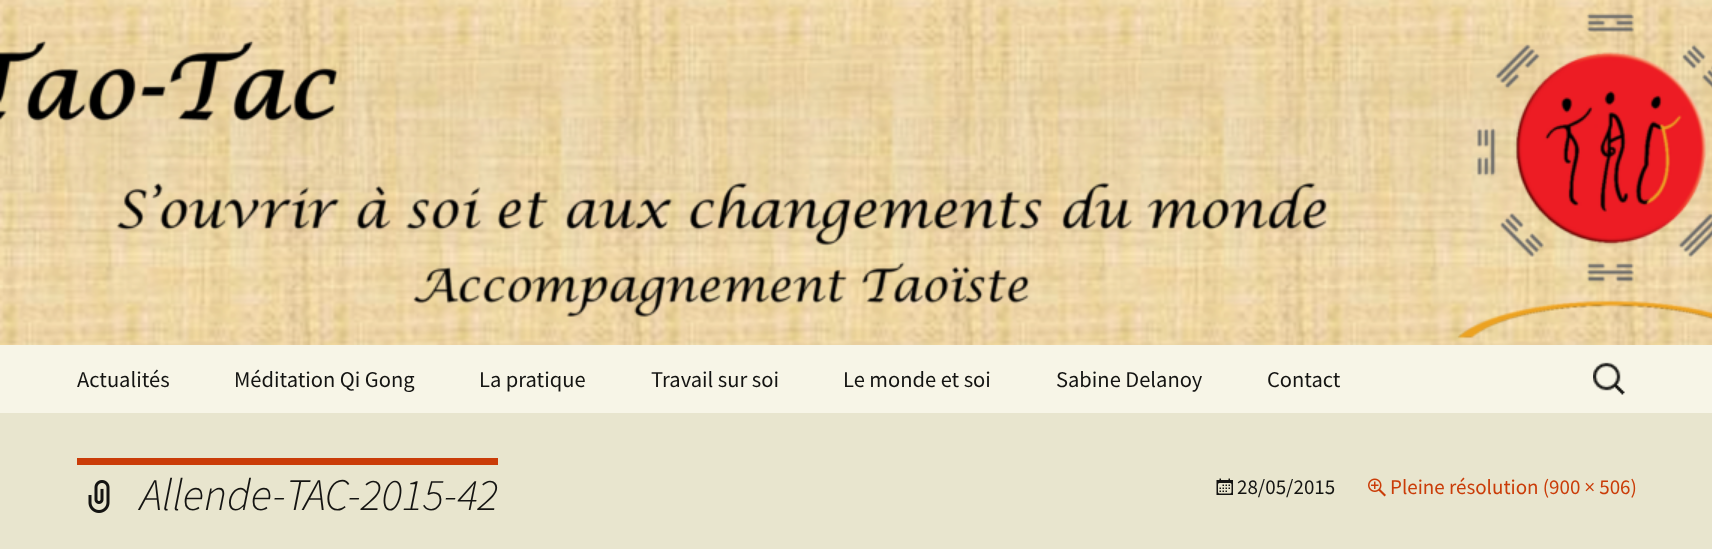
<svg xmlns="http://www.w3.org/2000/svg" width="1712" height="549">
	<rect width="100%" height="100%" fill="#FFFFFF" />
	<image x="0" y="0" width="1712" height="345" href="assets/img1.png" />
	<rect x="0" y="345" width="1712" height="68" fill="#F7F5E7" />
	<g font-family="Source Sans Pro" font-size="22.5" fill="#141412">
		<text x="77" y="387">Actualités</text>
		<text x="234" y="387">Méditation Qi Gong</text>
		<text x="479" y="387">La pratique</text>
		<text x="651" y="387">Travail sur soi</text>
		<text x="843" y="387">Le monde et soi</text>
		<text x="1056" y="387">Sabine Delanoy</text>
		<text x="1267" y="387">Contact</text>
	</g>
	<image x="1593" y="362" width="32" height="33" href="assets/img2.png" />
	<rect x="0" y="413" width="1712" height="136" fill="#E8E5CE" />
	<rect x="77" y="458" width="421" height="7" fill="#CA3C08" />
	<image x="88" y="480" width="22" height="33" href="assets/img3.png" />
	<text x="140" y="510" font-family="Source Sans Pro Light" font-size="45" font-weight="300" font-style="italic" fill="#141412">Allende-TAC-2015-42</text>
	<image x="1216" y="478" width="17" height="17" href="assets/img4.png" />
	<text x="1237" y="494" font-family="Source Sans Pro" font-size="21" fill="#141412">28/05/2015</text>
	<image x="1368" y="478" width="18" height="19" href="assets/img5.png" />
	<text x="1390" y="494" font-family="Source Sans Pro" font-size="21" fill="#CA3C08">Pleine résolution (900 × 506)</text>
</svg>
